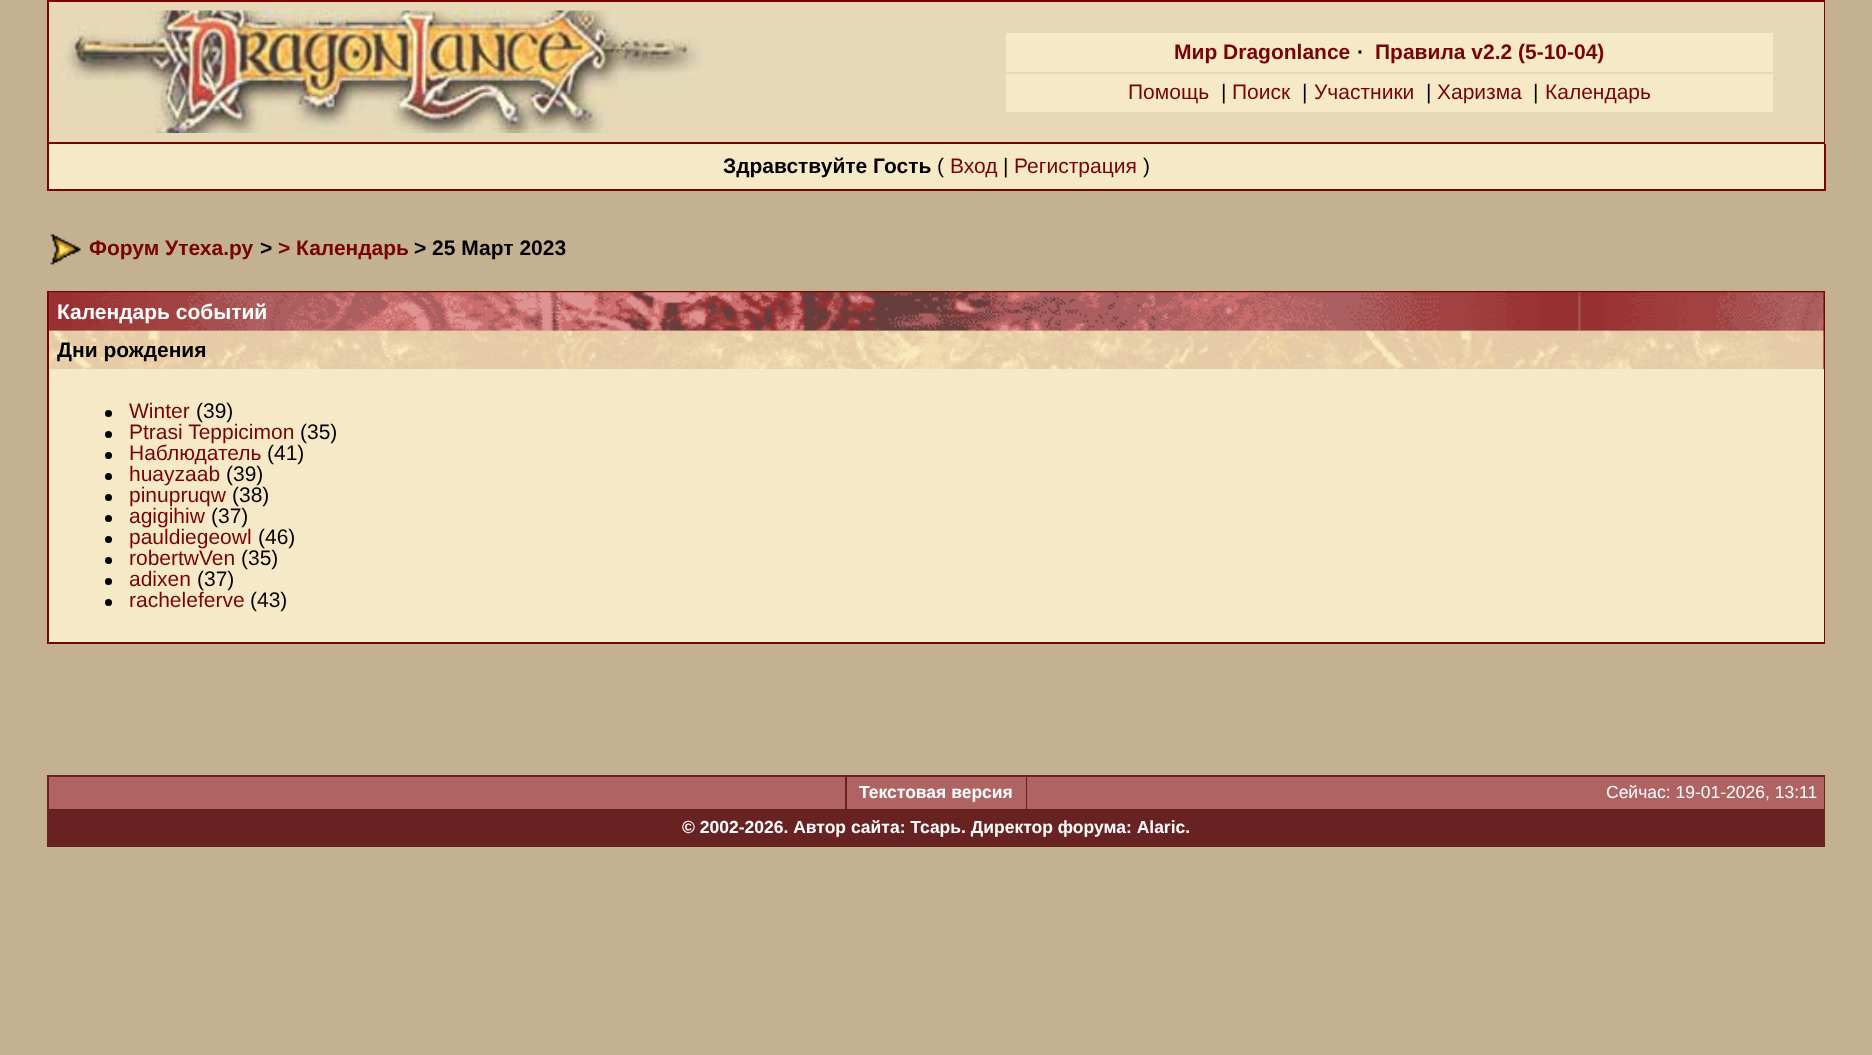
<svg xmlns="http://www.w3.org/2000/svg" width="1872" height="1055">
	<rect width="100%" height="100%" fill="#C3B191" />
	<rect x="48" y="1" width="1776" height="142" fill="none" stroke="#770303" stroke-width="2" />
	<rect x="49" y="2" width="1775" height="140" fill="#E7D8B7" />
	<image x="58" y="10" width="644" height="123" href="assets/img1.png" />
	<rect x="1006" y="33" width="767" height="39" fill="#F5E9C8" />
	<text x="1174" y="59" font-family="Liberation Sans" font-size="21" font-weight="700" fill="#770303">Мир Dragonlance</text>
	<text x="1357" y="59" font-family="Liberation Sans" font-size="21" font-weight="700" fill="#000000">·</text>
	<text x="1375" y="59" font-family="Liberation Sans" font-size="21" font-weight="700" fill="#770303">Правила v2.2 (5-10-04)</text>
	<rect x="1006" y="74" width="767" height="38" fill="#F5E9C8" />
	<text x="1128" y="99" font-family="Liberation Sans" font-size="21" fill="#770303">Помощь</text>
	<text x="1221" y="99" font-family="Liberation Sans" font-size="21" fill="#000000">|</text>
	<text x="1232" y="99" font-family="Liberation Sans" font-size="21" fill="#770303">Поиск</text>
	<text x="1302" y="99" font-family="Liberation Sans" font-size="21" fill="#000000">|</text>
	<text x="1314" y="99" font-family="Liberation Sans" font-size="21" fill="#770303">Участники</text>
	<text x="1426" y="99" font-family="Liberation Sans" font-size="21" fill="#000000">|</text>
	<text x="1437" y="99" font-family="Liberation Sans" font-size="21" fill="#770303">Харизма</text>
	<text x="1533" y="99" font-family="Liberation Sans" font-size="21" fill="#000000">|</text>
	<text x="1545" y="99" font-family="Liberation Sans" font-size="21" fill="#770303">Календарь</text>
	<rect x="49" y="144" width="1775" height="45" fill="#F5E9C8" />
	<rect x="1824" y="144" width="2" height="47" fill="#770303" />
	<rect x="47" y="189" width="1778" height="2" fill="#770303" />
	<rect x="47" y="144" width="2" height="47" fill="#770303" />
	<text x="723" y="173" font-family="Liberation Sans" font-size="21" font-weight="700" fill="#000000">Здравствуйте Гость</text>
	<text x="937" y="173" font-family="Liberation Sans" font-size="21" fill="#000000">(</text>
	<text x="950" y="173" font-family="Liberation Sans" font-size="21" fill="#770303">Вход</text>
	<text x="1003" y="173" font-family="Liberation Sans" font-size="21" fill="#000000">|</text>
	<text x="1014" y="173" font-family="Liberation Sans" font-size="21" fill="#770303">Регистрация</text>
	<text x="1143" y="173" font-family="Liberation Sans" font-size="21" fill="#000000">)</text>
	<image x="50" y="234" width="31" height="31" href="assets/img2.png" />
	<text x="89" y="255" font-family="Liberation Sans" font-size="21" font-weight="700" fill="#770303">Форум Утеха.ру</text>
	<text x="260" y="255" font-family="Liberation Sans" font-size="21" font-weight="700" fill="#000000">&gt;</text>
	<text x="278" y="255" font-family="Liberation Sans" font-size="21" font-weight="700" fill="#770303">&gt; Календарь</text>
	<text x="414" y="255" font-family="Liberation Sans" font-size="21" font-weight="700" fill="#000000">&gt; 25 Март 2023</text>
	<rect x="48" y="292" width="1776" height="351" fill="none" stroke="#770303" stroke-width="2" />
	<image x="49" y="292" width="1775" height="39" href="assets/img3.png" />
	<text x="57" y="319" font-family="Liberation Sans" font-size="21" font-weight="700" fill="#FFFFFF">Календарь событий</text>
	<image x="49" y="330" width="1775" height="39" href="assets/img4.png" />
	<text x="57" y="357" font-family="Liberation Sans" font-size="21" font-weight="700" fill="#000000">Дни рождения</text>
	<rect x="49" y="369" width="1775" height="273" fill="#F5E9C8" />
	<circle cx="108.5" cy="413.5" r="3.5" fill="#000000" />
	<text x="129" y="418" font-family="Liberation Sans" font-size="21" fill="#770303">Winter</text>
	<text x="196" y="418" font-family="Liberation Sans" font-size="21" fill="#000000">(39)</text>
	<circle cx="108.5" cy="434.5" r="3.5" fill="#000000" />
	<text x="129" y="439" font-family="Liberation Sans" font-size="21" fill="#770303">Ptrasi Teppicimon</text>
	<text x="300" y="439" font-family="Liberation Sans" font-size="21" fill="#000000">(35)</text>
	<circle cx="108.5" cy="455.5" r="3.5" fill="#000000" />
	<text x="129" y="460" font-family="Liberation Sans" font-size="21" fill="#770303">Наблюдатель</text>
	<text x="267" y="460" font-family="Liberation Sans" font-size="21" fill="#000000">(41)</text>
	<circle cx="108.5" cy="476.5" r="3.5" fill="#000000" />
	<text x="129" y="481" font-family="Liberation Sans" font-size="21" fill="#770303">huayzaab</text>
	<text x="226" y="481" font-family="Liberation Sans" font-size="21" fill="#000000">(39)</text>
	<circle cx="108.5" cy="497.5" r="3.5" fill="#000000" />
	<text x="129" y="502" font-family="Liberation Sans" font-size="21" fill="#770303">pinupruqw</text>
	<text x="232" y="502" font-family="Liberation Sans" font-size="21" fill="#000000">(38)</text>
	<circle cx="108.5" cy="518.5" r="3.5" fill="#000000" />
	<text x="129" y="523" font-family="Liberation Sans" font-size="21" fill="#770303">agigihiw</text>
	<text x="211" y="523" font-family="Liberation Sans" font-size="21" fill="#000000">(37)</text>
	<circle cx="108.5" cy="539.5" r="3.5" fill="#000000" />
	<text x="129" y="544" font-family="Liberation Sans" font-size="21" fill="#770303">pauldiegeowl</text>
	<text x="258" y="544" font-family="Liberation Sans" font-size="21" fill="#000000">(46)</text>
	<circle cx="108.5" cy="560.5" r="3.5" fill="#000000" />
	<text x="129" y="565" font-family="Liberation Sans" font-size="21" fill="#770303">robertwVen</text>
	<text x="241" y="565" font-family="Liberation Sans" font-size="21" fill="#000000">(35)</text>
	<circle cx="108.5" cy="581.5" r="3.5" fill="#000000" />
	<text x="129" y="586" font-family="Liberation Sans" font-size="21" fill="#770303">adixen</text>
	<text x="197" y="586" font-family="Liberation Sans" font-size="21" fill="#000000">(37)</text>
	<circle cx="108.5" cy="602.5" r="3.5" fill="#000000" />
	<text x="129" y="607" font-family="Liberation Sans" font-size="21" fill="#770303">racheleferve</text>
	<text x="250" y="607" font-family="Liberation Sans" font-size="21" fill="#000000">(43)</text>
	<rect x="47" y="775" width="1778" height="72" fill="#692222" />
	<rect x="49" y="777" width="796" height="32" fill="#B06363" />
	<rect x="847" y="777" width="179" height="32" fill="#B06363" />
	<text x="859" y="798" font-family="Liberation Sans" font-size="17.5" font-weight="700" fill="#FFFFFF">Текстовая версия</text>
	<rect x="1027" y="777" width="797" height="32" fill="#B06363" />
	<text x="1606" y="798" font-family="Liberation Sans" font-size="17.5" fill="#FFFFFF">Сейчас: 19-01-2026, 13:11</text>
	<text x="682" y="833" font-family="Liberation Sans" font-size="17.5" font-weight="700" fill="#FFFFFF">© 2002-2026. Автор сайта: Тсарь. Директор форума: Alaric.</text>
</svg>
